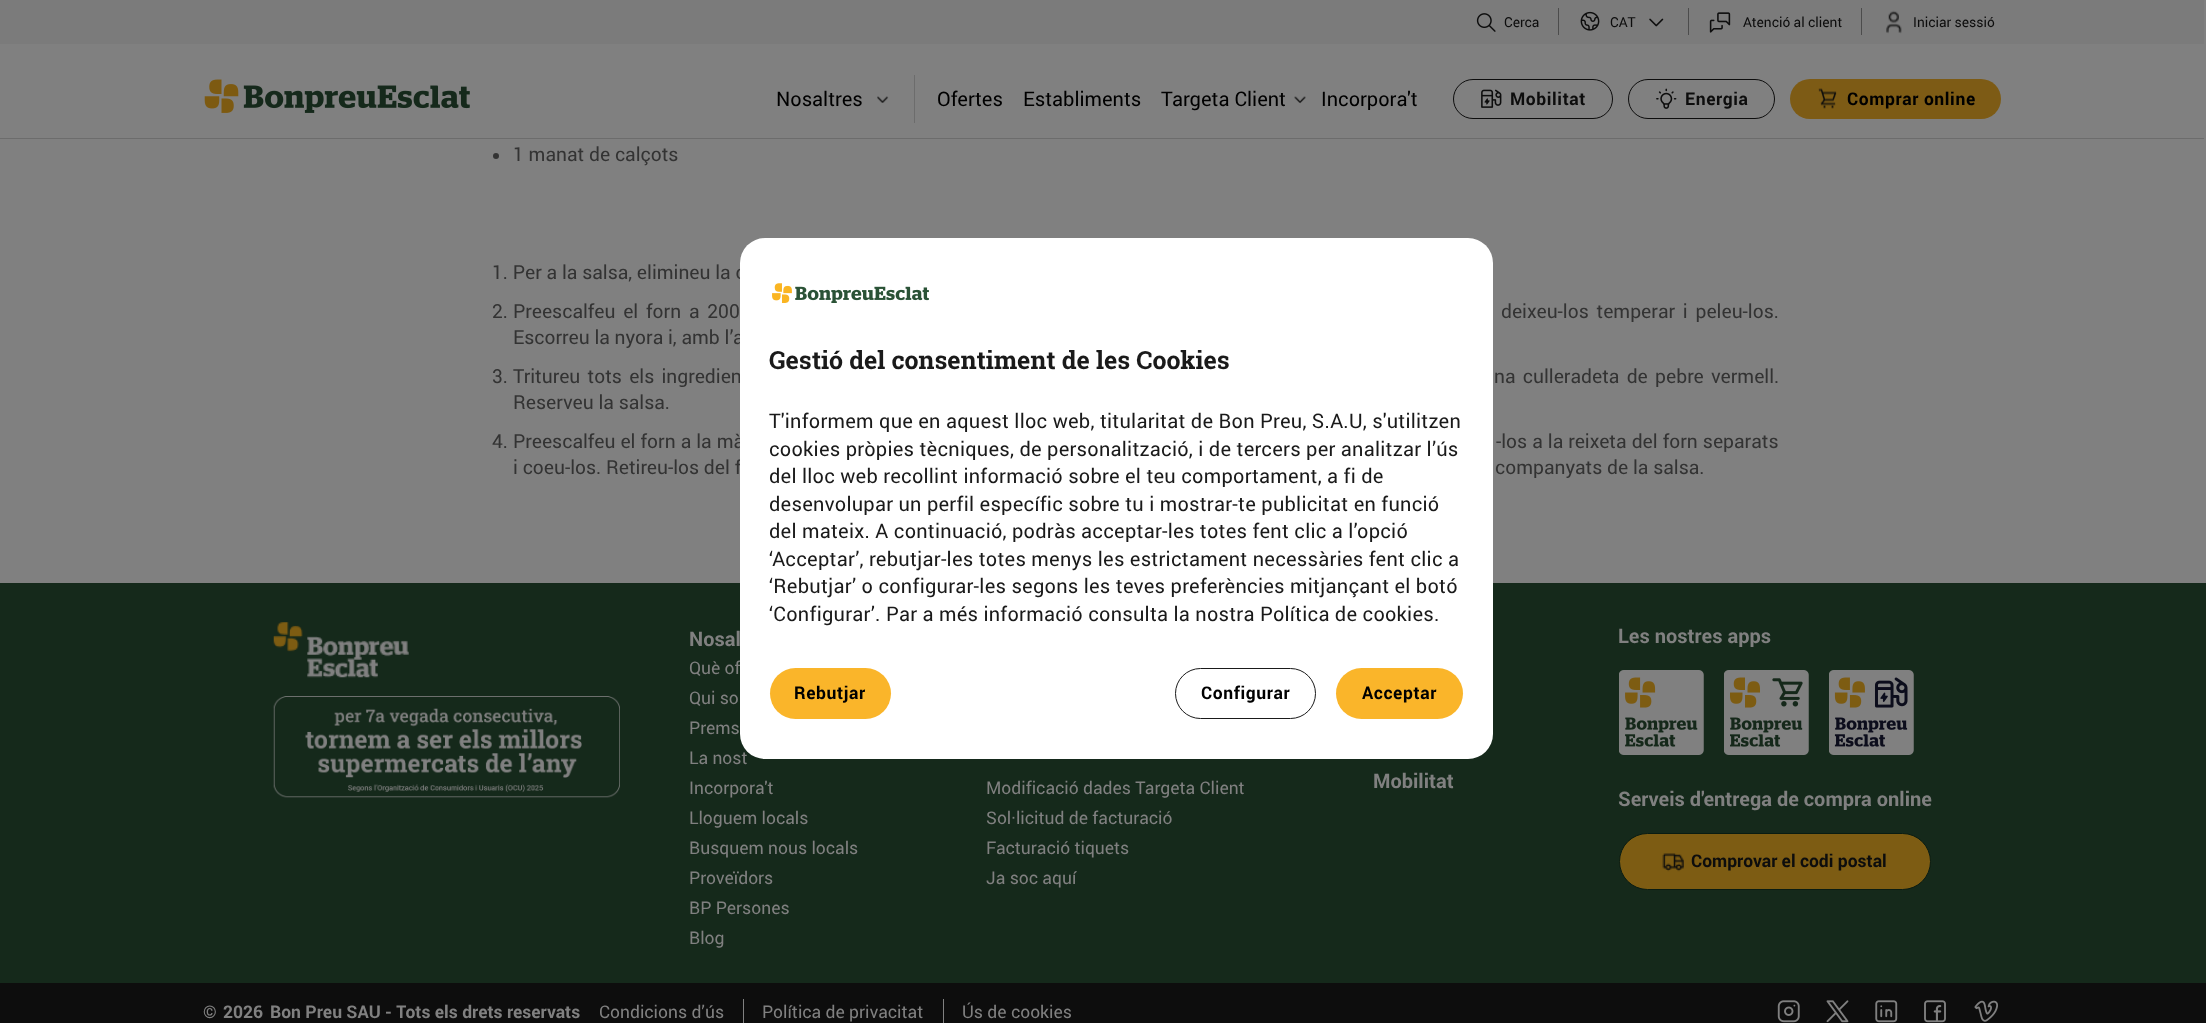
<svg xmlns="http://www.w3.org/2000/svg" width="2206" height="1023">
	<rect width="100%" height="100%" fill="#808080" />
	<rect x="0" y="138" width="2204" height="1" fill="#6C6C6C" />
	<rect x="0" y="0" width="2204" height="44" fill="#7B7B7B" />
	<rect x="1558" y="8" width="1" height="27" fill="#4C4C4C" />
	<image x="1476" y="13" width="20" height="19" href="assets/img1.png" />
	<text x="1504" y="27" font-family="Roboto" font-size="13.75" fill="#0D0D0D">Cerca</text>
	<rect x="1688" y="8" width="1" height="27" fill="#4C4C4C" />
	<image x="1580" y="11" width="20" height="20" href="assets/img2.png" />
	<text x="1610" y="27" font-family="Roboto" font-size="13.75" fill="#0D0D0D">CAT</text>
	<image x="1649" y="18" width="15" height="9" href="assets/img3.png" />
	<rect x="1861" y="8" width="1" height="27" fill="#4C4C4C" />
	<image x="1709" y="12" width="22" height="21" href="assets/img4.png" />
	<text x="1743" y="27" font-family="Roboto" font-size="13.75" fill="#0D0D0D">Atenció al client</text>
	<image x="1886" y="10" width="16" height="24" href="assets/img5.png" />
	<text x="1913" y="27" font-family="Roboto" font-size="13.75" fill="#0D0D0D">Iniciar sessió</text>
	<image x="204" y="79" width="266" height="34" href="assets/img6.png" />
	<rect x="914" y="75" width="1" height="48" fill="#6C6C6C" />
	<text x="776" y="106" font-family="Roboto" font-size="20" fill="#000000">Nosaltres</text>
	<image x="877" y="96" width="12" height="7" href="assets/img7.png" />
	<g font-family="Roboto" font-size="20" fill="#000000">
		<text x="937" y="106">Ofertes</text>
		<text x="1023" y="106">Establiments</text>
		<text x="1161" y="106">Targeta Client</text>
	</g>
	<image x="1294" y="96" width="12" height="8" href="assets/img8.png" />
	<text x="1321" y="106" font-family="Roboto" font-size="20" fill="#000000">Incorpora't</text>
	<rect x="1453.5" y="79.5" width="159" height="39" rx="19.5" fill="none" stroke="#0D0D0D" />
	<image x="1481" y="89" width="21" height="19" href="assets/img9.png" />
	<text x="1510" y="105" font-family="Roboto" font-size="17.5" font-weight="700" letter-spacing="0.6" fill="#0D0D0D">Mobilitat</text>
	<rect x="1628.5" y="79.5" width="146" height="39" rx="19.5" fill="none" stroke="#0D0D0D" />
	<image x="1656" y="88" width="21" height="21" href="assets/img10.png" />
	<text x="1685" y="105" font-family="Roboto" font-size="17.5" font-weight="700" letter-spacing="0.6" fill="#0D0D0D">Energia</text>
	<rect x="1790" y="79" width="211" height="40" rx="20" fill="#7D5B15" />
	<image x="1818" y="88" width="19" height="21" href="assets/img11.png" />
	<text x="1847" y="105" font-family="Roboto" font-size="17.5" font-weight="700" letter-spacing="0.6" fill="#000000">Comprar online</text>
	<circle cx="496" cy="156" r="3" fill="#333333" />
	<g font-family="Roboto" font-size="19.25" fill="#333333">
		<text x="513" y="161">1 manat de calçots</text>
		<text x="492" y="279">1. Per a la salsa, elimineu la c</text>
		<text x="492" y="318">2.</text>
		<text x="513" y="318" word-spacing="3">Preescalfeu el forn a 200</text>
		<text x="1501" y="318" word-spacing="3">deixeu-los temperar i peleu-los.</text>
		<text x="513" y="344">Escorreu la nyora i, amb l’a</text>
		<text x="492" y="383">3.</text>
		<text x="513" y="383" word-spacing="2.5">Tritureu tots els ingredien</text>
		<text x="1494" y="383" word-spacing="2.5">na culleradeta de pebre vermell.</text>
		<text x="513" y="409">Reserveu la salsa.</text>
		<text x="492" y="448">4.</text>
		<text x="513" y="448" word-spacing="0.25">Preescalfeu el forn a la mà</text>
		<text x="1496" y="448" word-spacing="0.25">-los a la reixeta del forn separats</text>
		<text x="513" y="474">i coeu-los. Retireu-los del f</text>
		<text x="1495" y="474">companyats de la salsa.</text>
	</g>
	<rect x="0" y="583" width="2206" height="400" fill="#15291B" />
	<g font-family="Roboto" font-size="17.5" fill="#808080">
		<text x="689" y="674">Què of</text>
		<text x="689" y="764">La nost</text>
	</g>
	<rect x="740" y="238" width="753" height="521" rx="25" fill="#FFFFFF" />
	<image x="772" y="283" width="157" height="20" href="assets/img12.png" />
	<text x="769" y="369" font-family="Roboto Slab" font-size="25" font-weight="700" fill="#1A1A1A">Gestió del consentiment de les Cookies</text>
	<g font-family="Roboto" font-size="20" letter-spacing="0.25" fill="#1A1A1A">
		<text x="769" y="428">T'informem que en aquest lloc web, titularitat de Bon Preu, S.A.U, s'utilitzen</text>
		<text x="769" y="456">cookies pròpies tècniques, de personalització, i de tercers per analitzar l’ús</text>
		<text x="769" y="483">del lloc web recollint informació sobre el teu comportament, a fi de</text>
		<text x="769" y="511">desenvolupar un perfil específic sobre tu i mostrar-te publicitat en funció</text>
		<text x="769" y="538">del mateix. A continuació, podràs acceptar-les totes fent clic a l’opció</text>
		<text x="769" y="566">‘Acceptar’, rebutjar-les totes menys les estrictament necessàries fent clic a</text>
		<text x="769" y="593">‘Rebutjar’ o configurar-les segons les teves preferències mitjançant el botó</text>
		<text x="769" y="621">‘Configurar’. Par a més informació consulta la nostra Política de cookies.</text>
	</g>
	<rect x="770" y="668" width="121" height="51" rx="25.5" fill="#FAB52A" />
	<text x="794" y="699" font-family="Roboto" font-size="17.5" font-weight="700" letter-spacing="0.6" fill="#000000">Rebutjar</text>
	<rect x="1175.5" y="668.5" width="140" height="50" rx="25" fill="none" stroke="#1A1A1A" />
	<text x="1201" y="699" font-family="Roboto" font-size="17.5" font-weight="700" letter-spacing="0.6" fill="#000000">Configurar</text>
	<rect x="1336" y="668" width="127" height="51" rx="25.5" fill="#FAB52A" />
	<text x="1362" y="699" font-family="Roboto" font-size="17.5" font-weight="700" letter-spacing="0.6" fill="#000000">Acceptar</text>
	<image x="273" y="622" width="136" height="56" href="assets/img13.png" />
	<image x="273" y="696" width="347" height="102" href="assets/img14.png" />
	<text x="689" y="646" font-family="Roboto" font-size="20" font-weight="700" fill="#808080">Nosal</text>
	<g font-family="Roboto" font-size="17.5" fill="#808080">
		<text x="689" y="704">Qui so</text>
		<text x="689" y="734">Prems</text>
		<text x="689" y="794">Incorpora't</text>
		<text x="689" y="824">Lloguem locals</text>
		<text x="689" y="854">Busquem nous locals</text>
		<text x="689" y="884">Proveïdors</text>
		<text x="689" y="914">BP Persones</text>
		<text x="689" y="944">Blog</text>
		<text x="986" y="794">Modificació dades Targeta Client</text>
		<text x="986" y="824">Sol·licitud de facturació</text>
		<text x="986" y="854">Facturació tiquets</text>
		<text x="986" y="884">Ja soc aquí</text>
	</g>
	<g font-family="Roboto" font-size="20" font-weight="700" fill="#808080">
		<text x="1373" y="788">Mobilitat</text>
		<text x="1618" y="643">Les nostres apps</text>
	</g>
	<image x="1619" y="670" width="85" height="85" href="assets/img15.png" />
	<image x="1724" y="670" width="85" height="85" href="assets/img16.png" />
	<image x="1829" y="670" width="85" height="85" href="assets/img17.png" />
	<text x="1618" y="806" font-family="Roboto" font-size="20" font-weight="700" fill="#808080">Serveis d'entrega de compra online</text>
	<rect x="1619.5" y="833.5" width="311" height="56" rx="28" fill="#7D5C13" stroke="#0A1C12" />
	<image x="1662" y="853" width="22" height="19" href="assets/img18.png" />
	<text x="1691" y="867" font-family="Roboto" font-size="17.5" font-weight="700" fill="#0D0D0D">Comprovar el codi postal</text>
	<rect x="0" y="983" width="2206" height="40" fill="#0D0D0D" />
	<g font-family="Roboto" font-size="17.5" font-weight="700" fill="#808080">
		<text x="203" y="1018">©</text>
		<text x="223" y="1018">2026</text>
		<text x="270" y="1018">Bon Preu SAU - Tots els drets reservats</text>
	</g>
	<text x="599" y="1018" font-family="Roboto" font-size="17.5" fill="#808080">Condicions d’ús</text>
	<rect x="743" y="999" width="1" height="24" fill="#808080" />
	<text x="762" y="1018" font-family="Roboto" font-size="17.5" fill="#808080">Política de privacitat</text>
	<rect x="943" y="999" width="1" height="24" fill="#808080" />
	<text x="962" y="1018" font-family="Roboto" font-size="17.5" fill="#808080">Ús de cookies</text>
	<image x="1777" y="1000" width="23" height="23" href="assets/img19.png" />
	<image x="1826" y="1000" width="23" height="23" href="assets/img20.png" />
	<image x="1875" y="1000" width="23" height="23" href="assets/img21.png" />
	<image x="1924" y="1000" width="22" height="23" href="assets/img22.png" />
	<image x="1974" y="1000" width="24" height="22" href="assets/img23.png" />
</svg>
